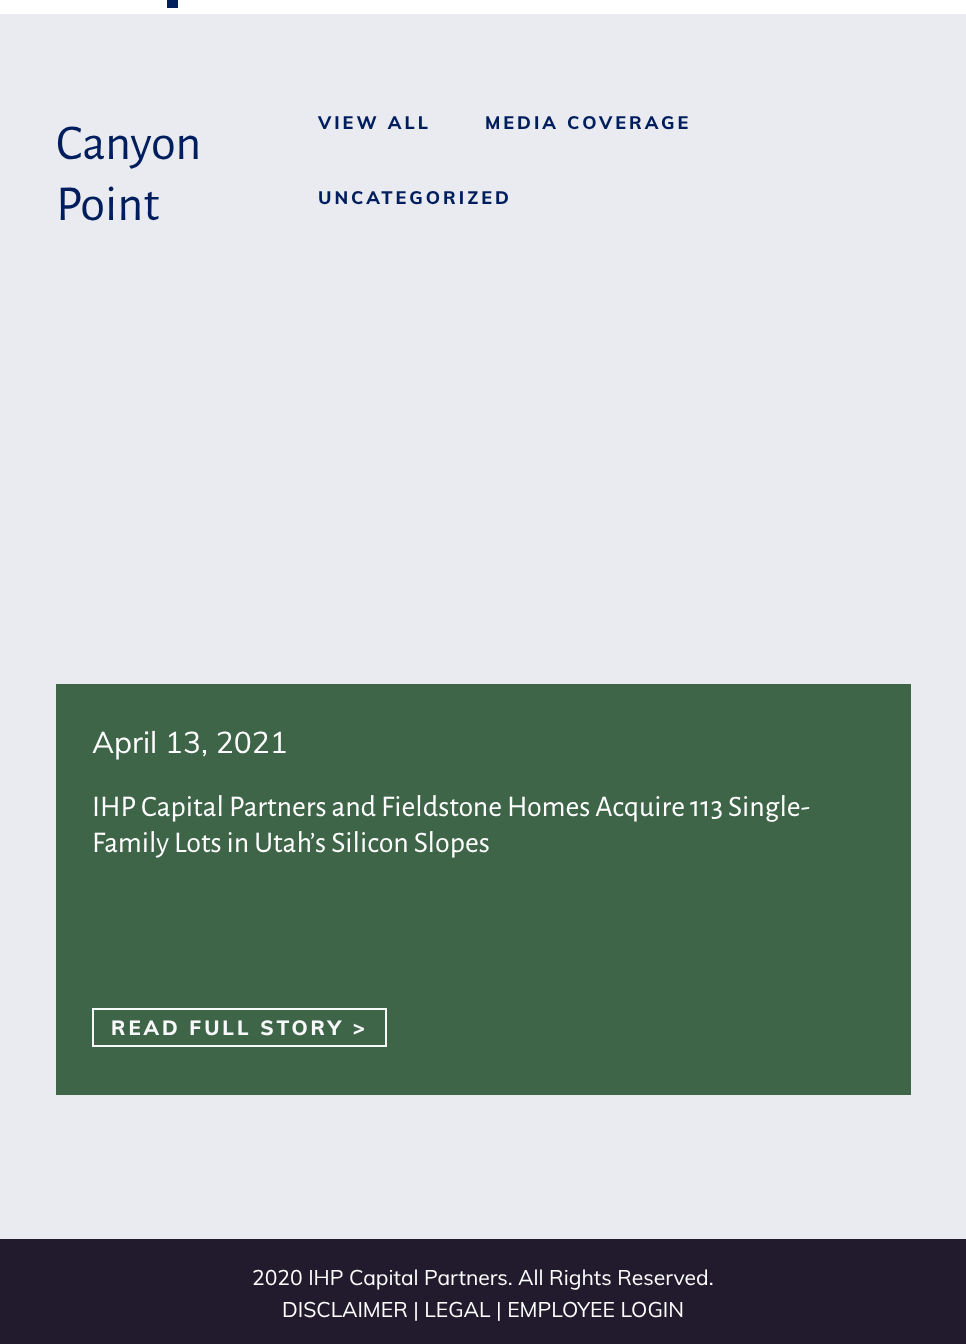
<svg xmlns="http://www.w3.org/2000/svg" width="966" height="1344">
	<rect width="100%" height="100%" fill="#E9EBF0" />
	<rect x="0" y="0" width="966" height="14" fill="#FFFFFF" />
	<rect x="167" y="0" width="11" height="8" fill="#00205B" />
	<g font-family="Alegreya Sans" font-size="50.5" fill="#001E5D">
		<text x="56" y="159">Canyon</text>
		<text x="56" y="220">Point</text>
	</g>
	<g font-family="Muli" font-size="18" font-weight="800" letter-spacing="3" fill="#001E5D">
		<text x="318" y="129">VIEW ALL</text>
		<text x="485" y="129">MEDIA COVERAGE</text>
		<text x="318" y="204">UNCATEGORIZED</text>
	</g>
	<rect x="56" y="684" width="855" height="411" fill="#3F6549" />
	<text x="92" y="753" font-family="Muli" font-size="30" fill="#FFFFFF">April 13, 2021</text>
	<g font-family="Alegreya Sans" font-size="30" fill="#FFFFFF">
		<text x="92" y="816">IHP Capital Partners and Fieldstone Homes Acquire 113 Single-</text>
		<text x="92" y="852">Family Lots in Utah’s Silicon Slopes</text>
	</g>
	<rect x="93" y="1009" width="293" height="37" fill="none" stroke="#F8F9FA" stroke-width="2" />
	<text x="111" y="1035" font-family="Muli" font-size="20.4" font-weight="800" letter-spacing="3" fill="#F8F9FA">READ FULL STORY &gt;</text>
	<rect x="0" y="1239" width="966" height="105" fill="#211B2D" />
	<g font-family="Muli" font-size="21.1" fill="#FFFFFF">
		<text x="252" y="1285">2020 IHP Capital Partners. All Rights Reserved.</text>
		<text x="282" y="1317">DISCLAIMER | LEGAL | EMPLOYEE LOGIN</text>
	</g>
</svg>
